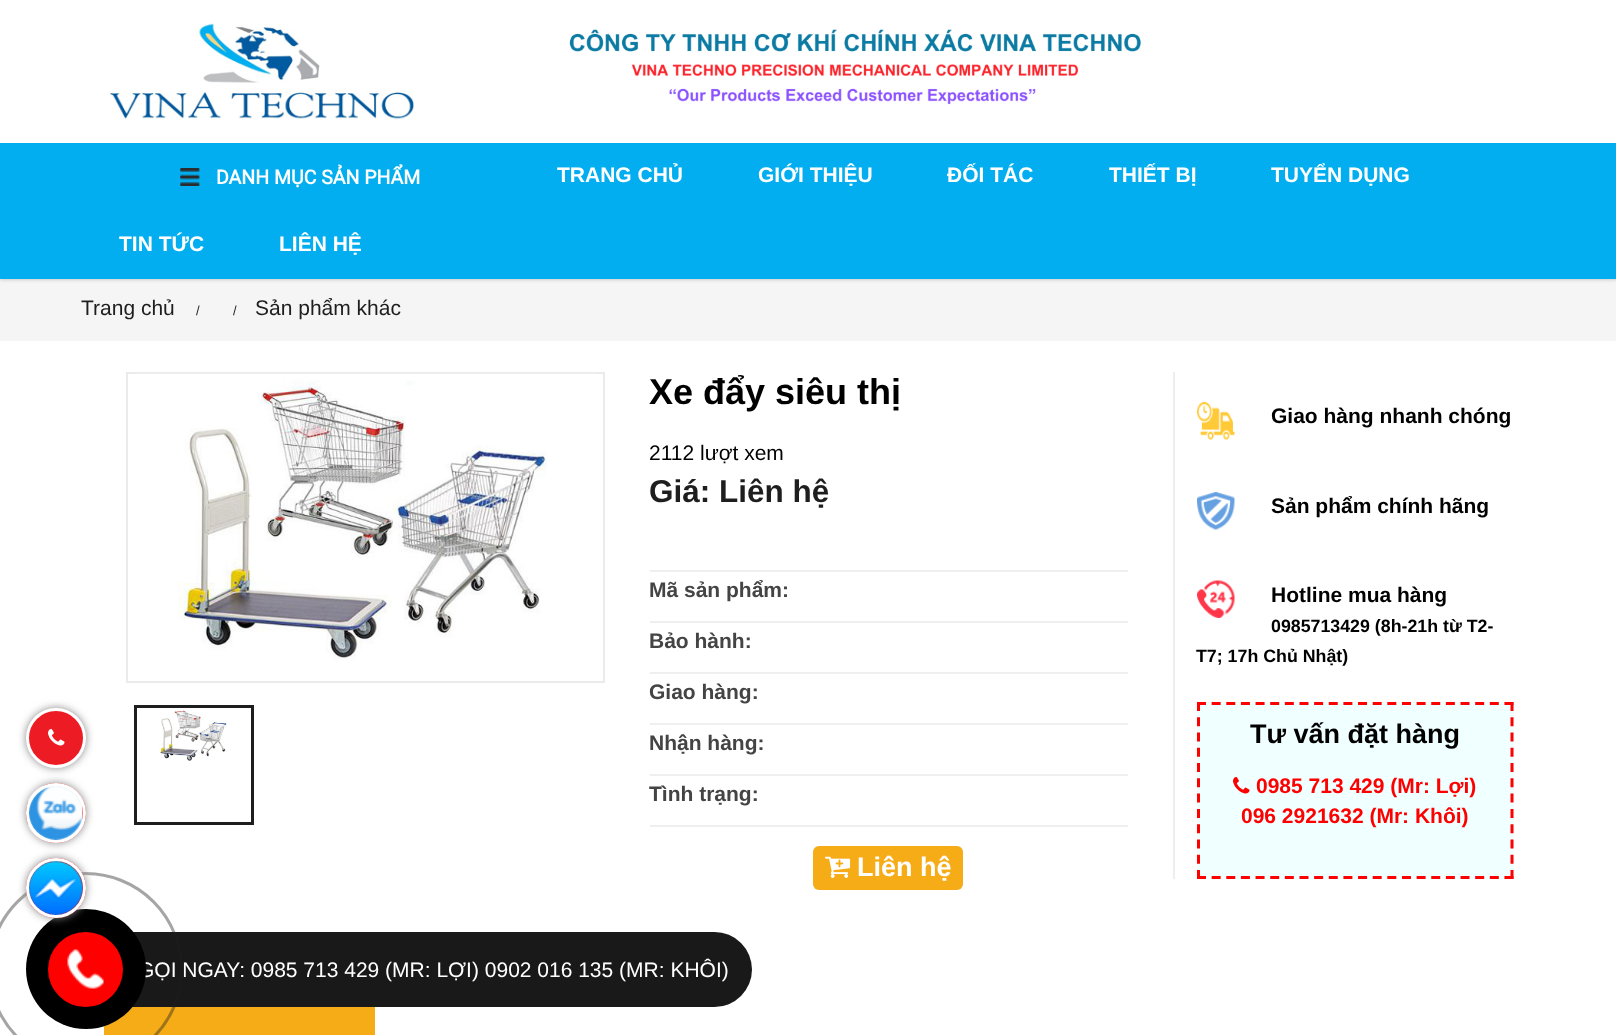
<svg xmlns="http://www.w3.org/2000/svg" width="1616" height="1035">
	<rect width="100%" height="100%" fill="#FFFFFF" />
	<rect x="26" y="708" width="60" height="60" rx="30" fill="#888888" filter="blur(4px)" />
	<circle cx="56" cy="738" r="28.5" fill="#ED1C24" stroke="#FFFFFF" stroke-width="3" />
	<image x="48" y="729" width="17" height="17" href="assets/img1.png" />
	<rect x="26" y="783" width="60" height="60" rx="30" fill="#888888" filter="blur(4px)" />
	<circle cx="56" cy="813" r="30" fill="#EF0303" />
	<image x="28" y="786" width="55" height="54" href="assets/img2.png" />
	<circle cx="56" cy="813" r="28.5" fill="none" stroke="#FFFFFF" stroke-width="3" />
	<rect x="104" y="1007" width="271" height="28" fill="#F5AC17" />
	<rect x="48" y="932" width="704" height="75" rx="37.5" fill="#1A1919" />
	<text x="138" y="977" font-family="Liberation Sans" font-size="21" fill="#FFFFFF">GỌI NGAY: 0985 713 429 (MR: LỢI) 0902 016 135 (MR: KHÔI)</text>
	<circle cx="85.5" cy="969.5" r="96" fill="none" stroke="#1E1E1E" stroke-opacity="0.4" stroke-width="3" />
	<circle cx="86" cy="969" r="60" fill="#000000" />
	<rect x="26" y="858" width="60" height="60" rx="30" fill="#888888" filter="blur(4px)" />
	<circle cx="56" cy="888" r="30" fill="#EF0303" />
	<image x="29" y="861" width="54" height="54" href="assets/img3.png" />
	<circle cx="56" cy="888" r="28.5" fill="none" stroke="#FFFFFF" stroke-width="3" />
	<rect x="0" y="279" width="1616" height="62" fill="#F5F5F5" />
	<rect x="0" y="0" width="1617" height="279" fill="#000000" fill-opacity="0.25" filter="blur(2px)" />
	<rect x="0" y="143" width="1616" height="136" fill="#02AEF0" />
	<rect x="0" y="0" width="1616" height="143" fill="#FFFFFF" />
	<image x="110" y="23" width="305" height="96" href="assets/img4.png" />
	<image x="569" y="29" width="572" height="76" href="assets/img5.png" />
	<image x="180" y="168" width="20" height="18" href="assets/img6.png" />
	<text x="216" y="184" font-family="Roboto" font-size="19.5" font-weight="700" fill="#FFFFFF">DANH MỤC SẢN PHẨM</text>
	<g font-family="Liberation Sans" font-size="21" font-weight="700" fill="#FFFFFF">
		<text x="557" y="182">TRANG CHỦ</text>
		<text x="758" y="182">GIỚI THIỆU</text>
		<text x="947" y="182">ĐỐI TÁC</text>
		<text x="1109" y="182">THIẾT BỊ</text>
		<text x="1271" y="182">TUYỂN DỤNG</text>
		<text x="119" y="251">TIN TỨC</text>
		<text x="279" y="251">LIÊN HỆ</text>
	</g>
	<text x="81" y="315" font-family="Liberation Sans" font-size="21" fill="#1E1E1E">Trang chủ</text>
	<g font-family="Liberation Sans" font-size="13" fill="#1E1E1E">
		<text x="196" y="315">/</text>
		<text x="233" y="315">/</text>
	</g>
	<text x="255" y="315" font-family="Liberation Sans" font-size="21" fill="#1E1E1E">Sản phẩm khác</text>
	<rect x="127" y="373" width="477" height="309" fill="none" stroke="#EBEBEC" stroke-width="2" />
	<image x="135" y="373" width="460" height="287" href="assets/img7.png" />
	<rect x="135.5" y="706.5" width="117" height="117" fill="none" stroke="#1E1E1E" stroke-width="3" />
	<image x="159" y="709" width="68" height="52" href="assets/img8.png" />
	<text x="649" y="404" font-family="Liberation Sans" font-size="36" font-weight="700" fill="#000000">Xe đẩy siêu thị</text>
	<text x="649" y="460" font-family="Liberation Sans" font-size="21" fill="#000000">2112 lượt xem</text>
	<text x="649" y="502" font-family="Liberation Sans" font-size="31.5" font-weight="700" fill="#1E1E1E">Giá: Liên hệ</text>
	<rect x="650" y="570" width="478" height="2" fill="#EFEFEF" />
	<text x="649" y="597" font-family="Liberation Sans" font-size="21" font-weight="700" fill="#444444">Mã sản phẩm:</text>
	<rect x="650" y="621" width="478" height="2" fill="#EFEFEF" />
	<text x="649" y="648" font-family="Liberation Sans" font-size="21" font-weight="700" fill="#444444">Bảo hành:</text>
	<rect x="650" y="672" width="478" height="2" fill="#EFEFEF" />
	<text x="649" y="699" font-family="Liberation Sans" font-size="21" font-weight="700" fill="#444444">Giao hàng:</text>
	<rect x="650" y="723" width="478" height="2" fill="#EFEFEF" />
	<text x="649" y="750" font-family="Liberation Sans" font-size="21" font-weight="700" fill="#444444">Nhận hàng:</text>
	<rect x="650" y="774" width="478" height="2" fill="#EFEFEF" />
	<text x="649" y="801" font-family="Liberation Sans" font-size="21" font-weight="700" fill="#444444">Tình trạng:</text>
	<rect x="650" y="825" width="478" height="2" fill="#EFEFEF" />
	<rect x="813" y="846" width="150" height="44" rx="6" fill="#F5AC17" />
	<image x="825" y="856" width="26" height="22" href="assets/img9.png" />
	<text x="857" y="876" font-family="Liberation Sans" font-size="27" font-weight="700" fill="#FFFFFF">Liên hệ</text>
	<rect x="1173" y="372" width="2" height="507" fill="#EEEEEE" />
	<image x="1197" y="402" width="38" height="38" href="assets/img10.png" />
	<text x="1271" y="423" font-family="Liberation Sans" font-size="21" font-weight="700" fill="#000000">Giao hàng nhanh chóng</text>
	<image x="1197" y="492" width="38" height="38" href="assets/img11.png" />
	<text x="1271" y="513" font-family="Liberation Sans" font-size="21" font-weight="700" fill="#000000">Sản phẩm chính hãng</text>
	<image x="1197" y="580" width="38" height="38" href="assets/img12.png" />
	<text x="1271" y="602" font-family="Liberation Sans" font-size="21" font-weight="700" fill="#000000">Hotline mua hàng</text>
	<g font-family="Liberation Sans" font-size="17.8" font-weight="700" fill="#000000">
		<text x="1271" y="632">0985713429 (8h-21h từ T2-</text>
		<text x="1196" y="662">T7; 17h Chủ Nhật)</text>
	</g>
	<rect x="1197" y="702" width="317" height="177" fill="#F0FFFF" />
	<path d="M1197 703.5H1513.5" fill="none" stroke="#FF0000" stroke-width="3" stroke-dasharray="9 5.64" />
	<path d="M1512 702V879" fill="none" stroke="#FF0000" stroke-width="3" stroke-dasharray="9 6.27" />
	<path d="M1197 877.5H1513.5" fill="none" stroke="#FF0000" stroke-width="3" stroke-dasharray="9 5.64" />
	<path d="M1198.5 702V879" fill="none" stroke="#FF0000" stroke-width="3" stroke-dasharray="9 6.27" />
	<text x="1250" y="743" font-family="Liberation Sans" font-size="27" font-weight="700" fill="#000000">Tư vấn đặt hàng</text>
	<image x="1233" y="777" width="17" height="17" href="assets/img13.png" />
	<g font-family="Liberation Sans" font-size="21" font-weight="700" fill="#FF0000">
		<text x="1256" y="793">0985 713 429 (Mr: Lợi)</text>
		<text x="1241" y="823">096 2921632 (Mr: Khôi)</text>
	</g>
	<circle cx="85.5" cy="969.5" r="37.5" fill="#FF0000" />
	<image x="67" y="949" width="37" height="40" href="assets/img14.png" />
</svg>
